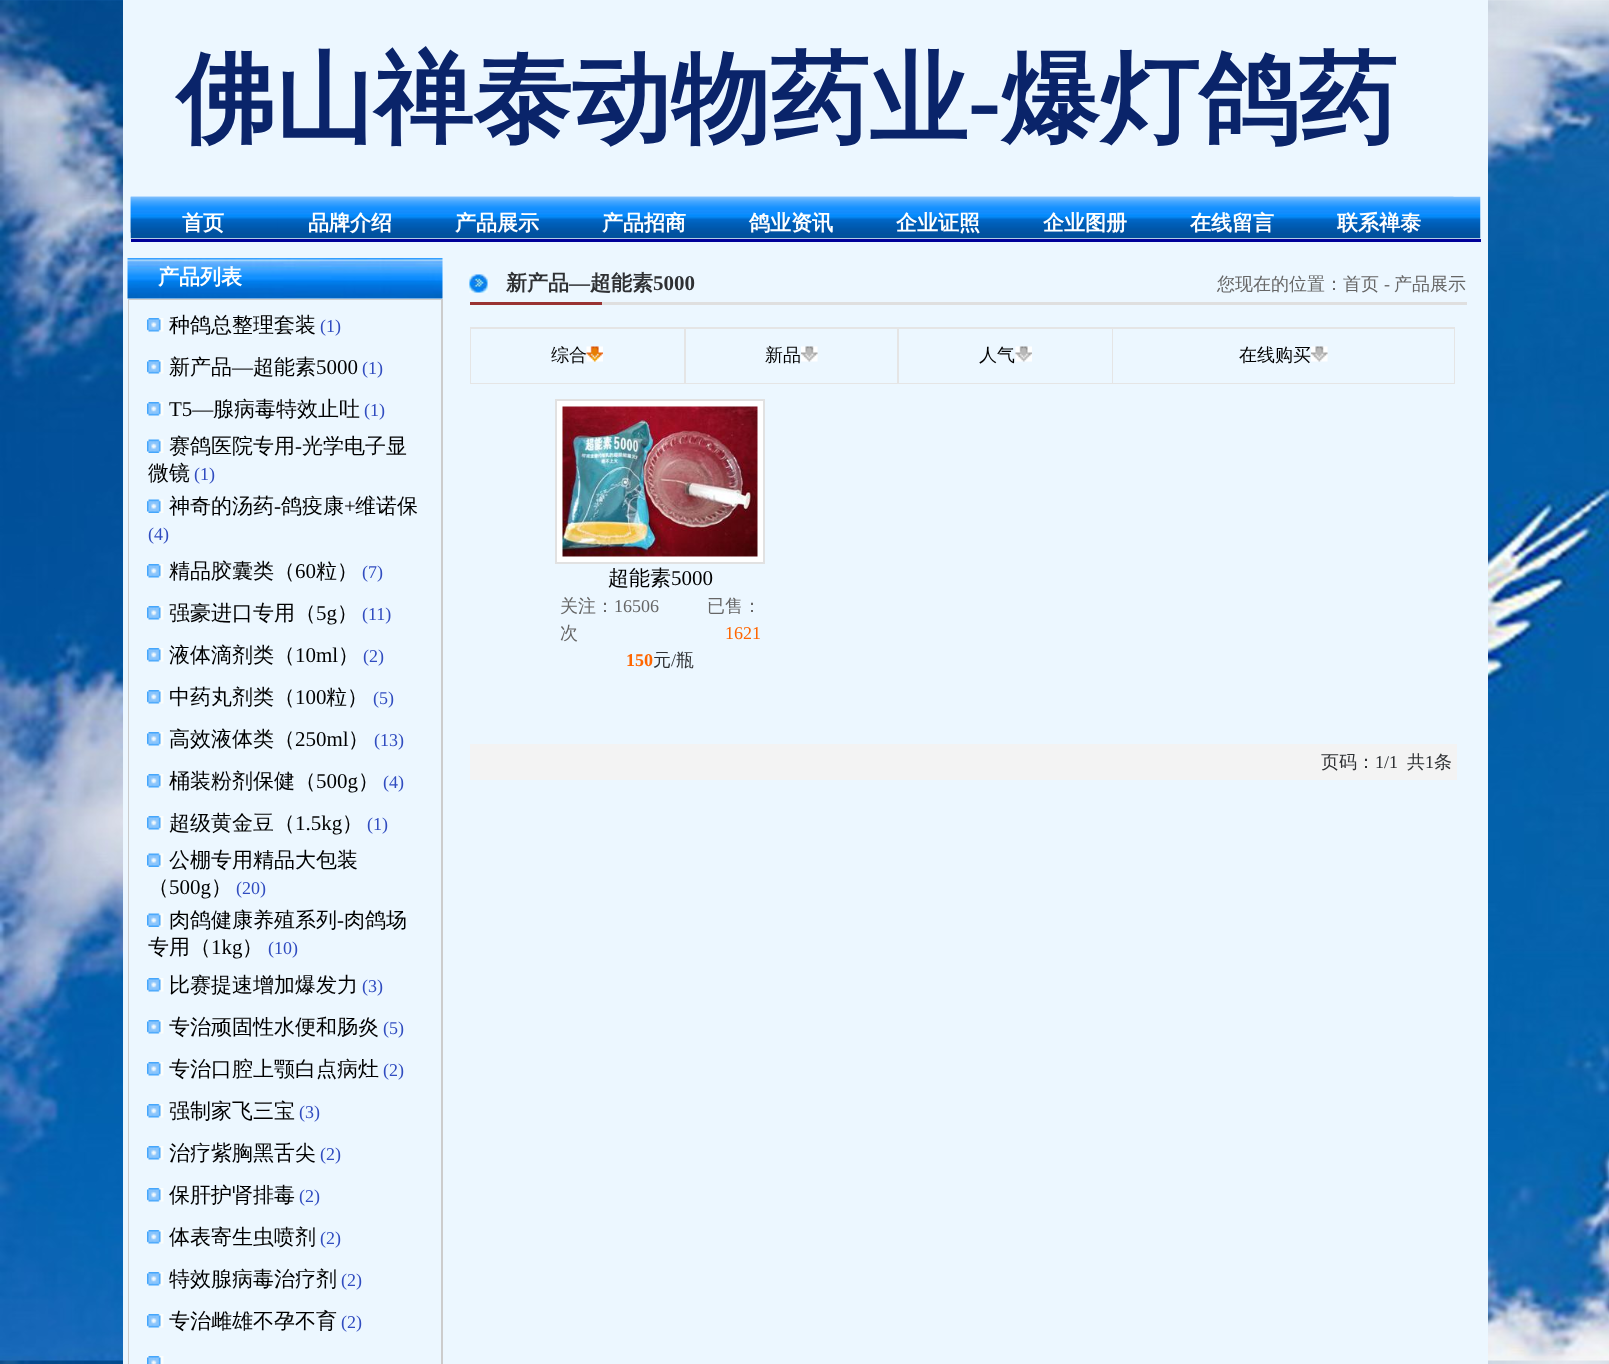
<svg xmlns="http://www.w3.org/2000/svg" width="1609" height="1364">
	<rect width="100%" height="100%" fill="#FFFFFF" />
	<image x="0" y="0" width="1609" height="1364" href="assets/img1.png" />
	<rect x="123" y="0" width="1365" height="1364" fill="#ECF7FF" />
	<text x="176" y="133" font-family="WenQuanYi Zen Hei" font-size="99" font-weight="700" fill="#0A246A">佛山禅泰动物药业</text>
	<text x="968" y="133" font-family="Liberation Serif" font-size="99" font-weight="700" fill="#0A246A">-</text>
	<text x="1001" y="133" font-family="WenQuanYi Zen Hei" font-size="99" font-weight="700" fill="#0A246A">爆灯鸽药</text>
	<image x="130" y="196" width="1351" height="43" href="assets/img2.png" />
	<image x="130" y="196" width="148" height="37" href="assets/img3.png" />
	<text x="182" y="230" font-family="WenQuanYi Zen Hei" font-size="21" font-weight="700" fill="#FFFFFF">首页</text>
	<image x="277" y="196" width="148" height="1" href="assets/img4.png" />
	<text x="308" y="230" font-family="WenQuanYi Zen Hei" font-size="21" font-weight="700" fill="#FFFFFF">品牌介绍</text>
	<image x="424" y="196" width="148" height="1" href="assets/img4.png" />
	<text x="455" y="230" font-family="WenQuanYi Zen Hei" font-size="21" font-weight="700" fill="#FFFFFF">产品展示</text>
	<image x="571" y="196" width="148" height="1" href="assets/img4.png" />
	<text x="602" y="230" font-family="WenQuanYi Zen Hei" font-size="21" font-weight="700" fill="#FFFFFF">产品招商</text>
	<image x="718" y="196" width="148" height="1" href="assets/img4.png" />
	<text x="749" y="230" font-family="WenQuanYi Zen Hei" font-size="21" font-weight="700" fill="#FFFFFF">鸽业资讯</text>
	<image x="865" y="196" width="148" height="1" href="assets/img4.png" />
	<text x="896" y="230" font-family="WenQuanYi Zen Hei" font-size="21" font-weight="700" fill="#FFFFFF">企业证照</text>
	<image x="1012" y="196" width="148" height="1" href="assets/img4.png" />
	<text x="1043" y="230" font-family="WenQuanYi Zen Hei" font-size="21" font-weight="700" fill="#FFFFFF">企业图册</text>
	<image x="1159" y="196" width="148" height="1" href="assets/img4.png" />
	<text x="1190" y="230" font-family="WenQuanYi Zen Hei" font-size="21" font-weight="700" fill="#FFFFFF">在线留言</text>
	<image x="1306" y="196" width="148" height="1" href="assets/img4.png" />
	<text x="1337" y="230" font-family="WenQuanYi Zen Hei" font-size="21" font-weight="700" fill="#FFFFFF">联系禅泰</text>
	<rect x="131" y="239" width="1350" height="3" fill="#000099" />
	<image x="127" y="258" width="316" height="41" href="assets/img5.png" />
	<text x="158" y="284" font-family="WenQuanYi Zen Hei" font-size="21" font-weight="700" fill="#FFFFFF">产品列表</text>
	<rect x="128" y="299" width="315" height="1065" fill="#CCCCCC" />
	<rect x="129" y="300" width="312" height="1064" fill="#ECF7FF" />
	<image x="147" y="318" width="17" height="14" href="assets/img6.png" />
	<text x="169" y="332" font-family="WenQuanYi Zen Hei" font-size="21" font-weight="500" fill="#000000">种鸽总整理套装</text>
	<text x="320" y="332" font-family="Liberation Serif" font-size="18" fill="#304CC0">(1)</text>
	<image x="147" y="360" width="17" height="14" href="assets/img6.png" />
	<text x="169" y="374" font-family="WenQuanYi Zen Hei" font-size="21" font-weight="500" fill="#000000">新产品</text>
	<text x="232" y="374" font-family="Liberation Serif" font-size="21" fill="#000000">—</text>
	<text x="253" y="374" font-family="WenQuanYi Zen Hei" font-size="21" font-weight="500" fill="#000000">超能素</text>
	<text x="316" y="374" font-family="Liberation Serif" font-size="21" fill="#000000">5000</text>
	<text x="362" y="374" font-family="Liberation Serif" font-size="18" fill="#304CC0">(1)</text>
	<image x="147" y="402" width="17" height="14" href="assets/img6.png" />
	<text x="169" y="416" font-family="Liberation Serif" font-size="21" fill="#000000">T5—</text>
	<text x="213" y="416" font-family="WenQuanYi Zen Hei" font-size="21" font-weight="500" fill="#000000">腺病毒特效止吐</text>
	<text x="364" y="416" font-family="Liberation Serif" font-size="18" fill="#304CC0">(1)</text>
	<image x="147" y="439" width="17" height="14" href="assets/img7.png" />
	<text x="169" y="453" font-family="WenQuanYi Zen Hei" font-size="21" font-weight="500" fill="#000000">赛鸽医院专用</text>
	<text x="295" y="453" font-family="Liberation Serif" font-size="21" fill="#000000">-</text>
	<g font-family="WenQuanYi Zen Hei" font-size="21" font-weight="500" fill="#000000">
		<text x="302" y="453">光学电子显</text>
		<text x="148" y="480">微镜</text>
	</g>
	<text x="194" y="480" font-family="Liberation Serif" font-size="18" fill="#304CC0">(1)</text>
	<image x="147" y="499" width="17" height="14" href="assets/img7.png" />
	<text x="169" y="513" font-family="WenQuanYi Zen Hei" font-size="21" font-weight="500" fill="#000000">神奇的汤药</text>
	<text x="274" y="513" font-family="Liberation Serif" font-size="21" fill="#000000">-</text>
	<text x="281" y="513" font-family="WenQuanYi Zen Hei" font-size="21" font-weight="500" fill="#000000">鸽疫康</text>
	<text x="344" y="513" font-family="Liberation Serif" font-size="21" fill="#000000">+</text>
	<text x="355" y="513" font-family="WenQuanYi Zen Hei" font-size="21" font-weight="500" fill="#000000">维诺保</text>
	<text x="148" y="540" font-family="Liberation Serif" font-size="18" fill="#304CC0">(4)</text>
	<image x="147" y="564" width="17" height="14" href="assets/img6.png" />
	<text x="169" y="578" font-family="WenQuanYi Zen Hei" font-size="21" font-weight="500" fill="#000000">精品胶囊类（</text>
	<text x="295" y="578" font-family="Liberation Serif" font-size="21" fill="#000000">60</text>
	<text x="316" y="578" font-family="WenQuanYi Zen Hei" font-size="21" font-weight="500" fill="#000000">粒）</text>
	<text x="362" y="578" font-family="Liberation Serif" font-size="18" fill="#304CC0">(7)</text>
	<image x="147" y="606" width="17" height="14" href="assets/img6.png" />
	<text x="169" y="620" font-family="WenQuanYi Zen Hei" font-size="21" font-weight="500" fill="#000000">强豪进口专用（</text>
	<text x="316" y="620" font-family="Liberation Serif" font-size="21" fill="#000000">5g</text>
	<text x="337" y="620" font-family="WenQuanYi Zen Hei" font-size="21" font-weight="500" fill="#000000">）</text>
	<text x="362" y="620" font-family="Liberation Serif" font-size="18" fill="#304CC0">(11)</text>
	<image x="147" y="648" width="17" height="14" href="assets/img6.png" />
	<text x="169" y="662" font-family="WenQuanYi Zen Hei" font-size="21" font-weight="500" fill="#000000">液体滴剂类（</text>
	<text x="295" y="662" font-family="Liberation Serif" font-size="21" fill="#000000">10ml</text>
	<text x="338" y="662" font-family="WenQuanYi Zen Hei" font-size="21" font-weight="500" fill="#000000">）</text>
	<text x="363" y="662" font-family="Liberation Serif" font-size="18" fill="#304CC0">(2)</text>
	<image x="147" y="690" width="17" height="14" href="assets/img6.png" />
	<text x="169" y="704" font-family="WenQuanYi Zen Hei" font-size="21" font-weight="500" fill="#000000">中药丸剂类（</text>
	<text x="295" y="704" font-family="Liberation Serif" font-size="21" fill="#000000">100</text>
	<text x="326" y="704" font-family="WenQuanYi Zen Hei" font-size="21" font-weight="500" fill="#000000">粒）</text>
	<text x="373" y="704" font-family="Liberation Serif" font-size="18" fill="#304CC0">(5)</text>
	<image x="147" y="732" width="17" height="14" href="assets/img6.png" />
	<text x="169" y="746" font-family="WenQuanYi Zen Hei" font-size="21" font-weight="500" fill="#000000">高效液体类（</text>
	<text x="295" y="746" font-family="Liberation Serif" font-size="21" fill="#000000">250ml</text>
	<text x="348" y="746" font-family="WenQuanYi Zen Hei" font-size="21" font-weight="500" fill="#000000">）</text>
	<text x="374" y="746" font-family="Liberation Serif" font-size="18" fill="#304CC0">(13)</text>
	<image x="147" y="774" width="17" height="14" href="assets/img6.png" />
	<text x="169" y="788" font-family="WenQuanYi Zen Hei" font-size="21" font-weight="500" fill="#000000">桶装粉剂保健（</text>
	<text x="316" y="788" font-family="Liberation Serif" font-size="21" fill="#000000">500g</text>
	<text x="358" y="788" font-family="WenQuanYi Zen Hei" font-size="21" font-weight="500" fill="#000000">）</text>
	<text x="383" y="788" font-family="Liberation Serif" font-size="18" fill="#304CC0">(4)</text>
	<image x="147" y="816" width="17" height="14" href="assets/img6.png" />
	<text x="169" y="830" font-family="WenQuanYi Zen Hei" font-size="21" font-weight="500" fill="#000000">超级黄金豆（</text>
	<text x="295" y="830" font-family="Liberation Serif" font-size="21" fill="#000000">1.5kg</text>
	<text x="342" y="830" font-family="WenQuanYi Zen Hei" font-size="21" font-weight="500" fill="#000000">）</text>
	<text x="367" y="830" font-family="Liberation Serif" font-size="18" fill="#304CC0">(1)</text>
	<image x="147" y="853" width="17" height="14" href="assets/img7.png" />
	<g font-family="WenQuanYi Zen Hei" font-size="21" font-weight="500" fill="#000000">
		<text x="169" y="867">公棚专用精品大包装</text>
		<text x="148" y="894">（</text>
	</g>
	<text x="169" y="894" font-family="Liberation Serif" font-size="21" fill="#000000">500g</text>
	<text x="211" y="894" font-family="WenQuanYi Zen Hei" font-size="21" font-weight="500" fill="#000000">）</text>
	<text x="236" y="894" font-family="Liberation Serif" font-size="18" fill="#304CC0">(20)</text>
	<image x="147" y="913" width="17" height="14" href="assets/img7.png" />
	<text x="169" y="927" font-family="WenQuanYi Zen Hei" font-size="21" font-weight="500" fill="#000000">肉鸽健康养殖系列</text>
	<text x="337" y="927" font-family="Liberation Serif" font-size="21" fill="#000000">-</text>
	<g font-family="WenQuanYi Zen Hei" font-size="21" font-weight="500" fill="#000000">
		<text x="344" y="927">肉鸽场</text>
		<text x="148" y="954">专用（</text>
	</g>
	<text x="211" y="954" font-family="Liberation Serif" font-size="21" fill="#000000">1kg</text>
	<text x="242" y="954" font-family="WenQuanYi Zen Hei" font-size="21" font-weight="500" fill="#000000">）</text>
	<text x="268" y="954" font-family="Liberation Serif" font-size="18" fill="#304CC0">(10)</text>
	<image x="147" y="978" width="17" height="14" href="assets/img6.png" />
	<text x="169" y="992" font-family="WenQuanYi Zen Hei" font-size="21" font-weight="500" fill="#000000">比赛提速增加爆发力</text>
	<text x="362" y="992" font-family="Liberation Serif" font-size="18" fill="#304CC0">(3)</text>
	<image x="147" y="1020" width="17" height="14" href="assets/img6.png" />
	<text x="169" y="1034" font-family="WenQuanYi Zen Hei" font-size="21" font-weight="500" fill="#000000">专治顽固性水便和肠炎</text>
	<text x="383" y="1034" font-family="Liberation Serif" font-size="18" fill="#304CC0">(5)</text>
	<image x="147" y="1062" width="17" height="14" href="assets/img6.png" />
	<text x="169" y="1076" font-family="WenQuanYi Zen Hei" font-size="21" font-weight="500" fill="#000000">专治口腔上颚白点病灶</text>
	<text x="383" y="1076" font-family="Liberation Serif" font-size="18" fill="#304CC0">(2)</text>
	<image x="147" y="1104" width="17" height="14" href="assets/img6.png" />
	<text x="169" y="1118" font-family="WenQuanYi Zen Hei" font-size="21" font-weight="500" fill="#000000">强制家飞三宝</text>
	<text x="299" y="1118" font-family="Liberation Serif" font-size="18" fill="#304CC0">(3)</text>
	<image x="147" y="1146" width="17" height="14" href="assets/img6.png" />
	<text x="169" y="1160" font-family="WenQuanYi Zen Hei" font-size="21" font-weight="500" fill="#000000">治疗紫胸黑舌尖</text>
	<text x="320" y="1160" font-family="Liberation Serif" font-size="18" fill="#304CC0">(2)</text>
	<image x="147" y="1188" width="17" height="14" href="assets/img6.png" />
	<text x="169" y="1202" font-family="WenQuanYi Zen Hei" font-size="21" font-weight="500" fill="#000000">保肝护肾排毒</text>
	<text x="299" y="1202" font-family="Liberation Serif" font-size="18" fill="#304CC0">(2)</text>
	<image x="147" y="1230" width="17" height="14" href="assets/img6.png" />
	<text x="169" y="1244" font-family="WenQuanYi Zen Hei" font-size="21" font-weight="500" fill="#000000">体表寄生虫喷剂</text>
	<text x="320" y="1244" font-family="Liberation Serif" font-size="18" fill="#304CC0">(2)</text>
	<image x="147" y="1272" width="17" height="14" href="assets/img6.png" />
	<text x="169" y="1286" font-family="WenQuanYi Zen Hei" font-size="21" font-weight="500" fill="#000000">特效腺病毒治疗剂</text>
	<text x="341" y="1286" font-family="Liberation Serif" font-size="18" fill="#304CC0">(2)</text>
	<image x="147" y="1314" width="17" height="14" href="assets/img6.png" />
	<text x="169" y="1328" font-family="WenQuanYi Zen Hei" font-size="21" font-weight="500" fill="#000000">专治雌雄不孕不育</text>
	<text x="341" y="1328" font-family="Liberation Serif" font-size="18" fill="#304CC0">(2)</text>
	<image x="147" y="1356" width="17" height="8" href="assets/img8.png" />
	<image x="469" y="274" width="19" height="19" href="assets/img9.png" />
	<text x="506" y="290" font-family="WenQuanYi Zen Hei" font-size="21" font-weight="700" fill="#2E3033">新产品</text>
	<text x="569" y="290" font-family="Liberation Serif" font-size="21" font-weight="700" fill="#2E3033">—</text>
	<text x="590" y="290" font-family="WenQuanYi Zen Hei" font-size="21" font-weight="700" fill="#2E3033">超能素</text>
	<text x="653" y="290" font-family="Liberation Serif" font-size="21" font-weight="700" fill="#2E3033">5000</text>
	<text x="1217" y="290" font-family="WenQuanYi Zen Hei" font-size="18" font-weight="500" fill="#666666">您现在的位置：首页</text>
	<text x="1384" y="290" font-family="Liberation Serif" font-size="18" fill="#666666">-</text>
	<text x="1394" y="290" font-family="WenQuanYi Zen Hei" font-size="18" font-weight="500" fill="#666666">产品展示</text>
	<rect x="470" y="302" width="132" height="3" fill="#993333" />
	<rect x="602" y="302" width="865" height="3" fill="#DFDFDF" />
	<rect x="470" y="327" width="985" height="57" fill="#E5E5E5" />
	<rect x="471" y="329" width="213" height="54" fill="#ECF7FF" />
	<text x="551" y="361" font-family="WenQuanYi Zen Hei" font-size="18" font-weight="500" fill="#000000">综合</text>
	<image x="586" y="346" width="17" height="16" href="assets/img10.png" />
	<rect x="686" y="329" width="211" height="54" fill="#ECF7FF" />
	<text x="765" y="361" font-family="WenQuanYi Zen Hei" font-size="18" font-weight="500" fill="#000000">新品</text>
	<image x="801" y="346" width="17" height="16" href="assets/img11.png" />
	<rect x="899" y="329" width="213" height="54" fill="#ECF7FF" />
	<text x="979" y="361" font-family="WenQuanYi Zen Hei" font-size="18" font-weight="500" fill="#000000">人气</text>
	<image x="1015" y="346" width="17" height="16" href="assets/img12.png" />
	<rect x="1113" y="329" width="341" height="54" fill="#ECF7FF" />
	<text x="1239" y="361" font-family="WenQuanYi Zen Hei" font-size="18" font-weight="500" fill="#000000">在线购买</text>
	<image x="1311" y="346" width="17" height="16" href="assets/img11.png" />
	<rect x="556" y="400" width="208" height="163" fill="#FFFFFF" stroke="#E1E1E1" stroke-width="2" />
	<image x="562" y="406" width="196" height="151" href="assets/img13.png" />
	<text x="608" y="585" font-family="WenQuanYi Zen Hei" font-size="21" font-weight="500" fill="#000000">超能素</text>
	<text x="671" y="585" font-family="Liberation Serif" font-size="21" fill="#000000">5000</text>
	<text x="560" y="612" font-family="WenQuanYi Zen Hei" font-size="18" font-weight="500" fill="#666666">关注：</text>
	<text x="614" y="612" font-family="Liberation Serif" font-size="18" fill="#666666">16506</text>
	<g font-family="WenQuanYi Zen Hei" font-size="18" font-weight="500" fill="#666666">
		<text x="560" y="639">次</text>
		<text x="707" y="612">已售：</text>
	</g>
	<text x="725" y="639" font-family="Liberation Serif" font-size="18" fill="#FF6600">1621</text>
	<text x="626" y="666" font-family="Liberation Serif" font-size="18" font-weight="700" fill="#FF6600">150</text>
	<text x="653" y="666" font-family="WenQuanYi Zen Hei" font-size="18" font-weight="500" fill="#2E3033">元</text>
	<text x="671" y="666" font-family="Liberation Serif" font-size="18" fill="#2E3033">/</text>
	<text x="676" y="666" font-family="WenQuanYi Zen Hei" font-size="18" font-weight="500" fill="#2E3033">瓶</text>
	<rect x="470" y="744" width="987" height="36" fill="#F3F3F3" />
	<text x="1321" y="768" font-family="WenQuanYi Zen Hei" font-size="18" font-weight="500" fill="#2E3033">页码：</text>
	<text x="1375" y="768" font-family="Liberation Serif" font-size="18" fill="#2E3033">1/1</text>
	<text x="1407" y="768" font-family="WenQuanYi Zen Hei" font-size="18" font-weight="500" fill="#2E3033">共</text>
	<text x="1425" y="768" font-family="Liberation Serif" font-size="18" fill="#2E3033">1</text>
	<text x="1434" y="768" font-family="WenQuanYi Zen Hei" font-size="18" font-weight="500" fill="#2E3033">条</text>
</svg>
